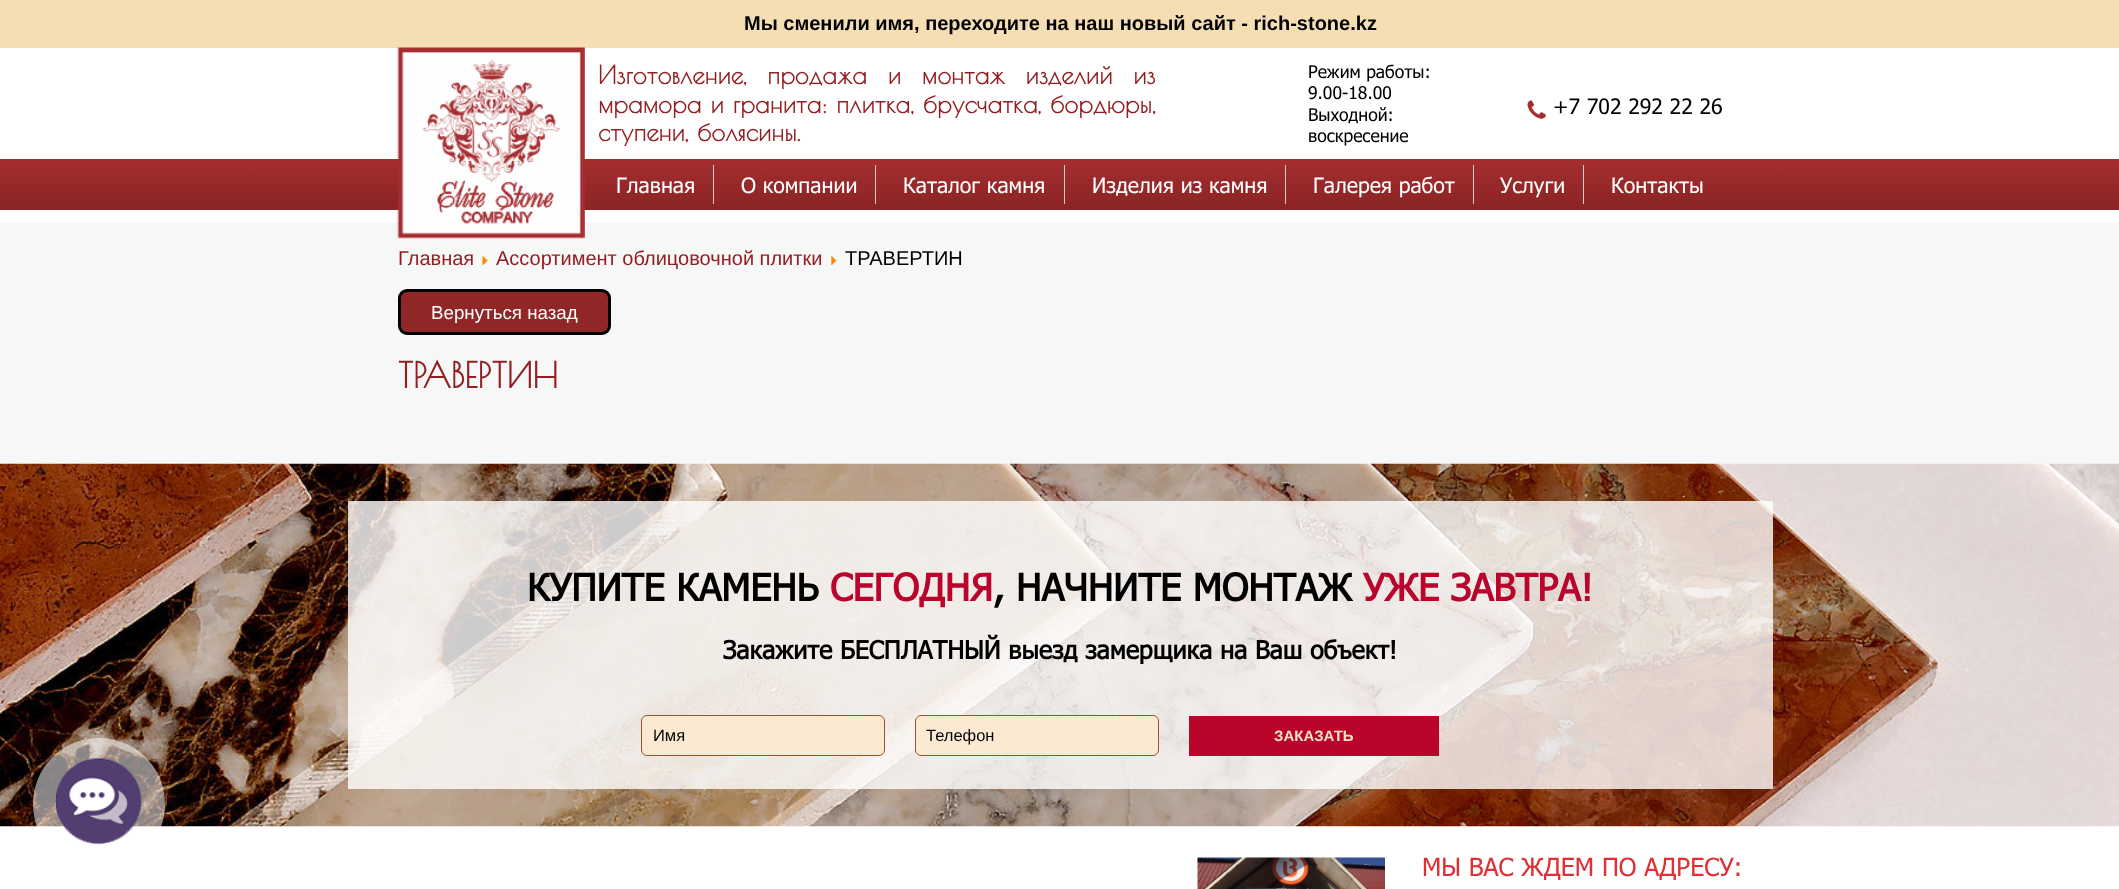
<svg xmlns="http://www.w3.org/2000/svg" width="2119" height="889">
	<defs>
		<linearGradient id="g1" gradientUnits="userSpaceOnUse" x1="1060" y1="159" x2="1060" y2="210"><stop offset="0" stop-color="#A52D2F" /><stop offset="1" stop-color="#8A2424" /></linearGradient>
		<linearGradient id="g2" gradientUnits="userSpaceOnUse" x1="1291" y1="851" x2="1291" y2="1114"><stop offset="0" stop-color="#FFFFFF" /><stop offset="1" stop-color="#EBECEC" /></linearGradient>
	</defs>
	<rect width="100%" height="100%" fill="#FFFFFF" />
	<rect x="0" y="0" width="2119" height="48" fill="#F5DEB3" />
	<text x="744" y="30" font-family="Liberation Sans" font-size="20" font-weight="700" fill="#000000">Мы сменили имя, переходите на наш новый сайт - rich-stone.kz</text>
	<rect x="0" y="159" width="2119" height="51" fill="url(#g1)" />
	<rect x="0" y="223" width="2119" height="241" fill="#F6F7F7" />
	<image x="397" y="47" width="188" height="192" href="assets/img1.png" />
	<g font-family="Poiret One" font-size="25" font-weight="700" fill="#941E21">
		<text x="598" y="84" word-spacing="12">Изготовление, продажа и монтаж изделий из</text>
		<text x="598" y="113" word-spacing="0.25">мрамора и гранита: плитка, брусчатка, бордюры,</text>
		<text x="598" y="141">ступени, болясины.</text>
	</g>
	<g font-family="Tahoma" font-size="17.5" fill="#000000">
		<text x="1308" y="78">Режим работы:</text>
		<text x="1308" y="99">9.00-18.00</text>
		<text x="1308" y="121">Выходной:</text>
		<text x="1308" y="142">воскресение</text>
	</g>
	<image x="1527" y="100" width="19" height="19" href="assets/img2.png" />
	<text x="1553" y="114" font-family="Tahoma" font-size="21.25" fill="#000000">+7 702 292 22 26</text>
	<text x="616" y="193" font-family="Tahoma" font-size="21.25" fill="#FFFFFF">Главная</text>
	<rect x="713" y="165" width="1" height="39" fill="#CCCCCC" />
	<text x="741" y="193" font-family="Tahoma" font-size="21.25" fill="#FFFFFF">О компании</text>
	<rect x="875" y="165" width="1" height="39" fill="#CCCCCC" />
	<text x="903" y="193" font-family="Tahoma" font-size="21.25" fill="#FFFFFF">Каталог камня</text>
	<rect x="1064" y="165" width="1" height="39" fill="#CCCCCC" />
	<text x="1092" y="193" font-family="Tahoma" font-size="21.25" fill="#FFFFFF">Изделия из камня</text>
	<rect x="1285" y="165" width="1" height="39" fill="#CCCCCC" />
	<text x="1313" y="193" font-family="Tahoma" font-size="21.25" fill="#FFFFFF">Галерея работ</text>
	<rect x="1473" y="165" width="1" height="39" fill="#CCCCCC" />
	<text x="1500" y="193" font-family="Tahoma" font-size="21.25" fill="#FFFFFF">Услуги</text>
	<rect x="1583" y="165" width="1" height="39" fill="#CCCCCC" />
	<text x="1611" y="193" font-family="Tahoma" font-size="21.25" fill="#FFFFFF">Контакты</text>
	<text x="398" y="265" font-family="Liberation Sans" font-size="20" fill="#941E21">Главная</text>
	<image x="482" y="256" width="6" height="9" href="assets/img3.png" />
	<text x="496" y="265" font-family="Liberation Sans" font-size="20" fill="#941E21">Ассортимент облицовочной плитки</text>
	<image x="831" y="256" width="6" height="9" href="assets/img4.png" />
	<text x="845" y="265" font-family="Liberation Sans" font-size="20" fill="#000000">ТРАВЕРТИН</text>
	<rect x="399.5" y="290.5" width="210" height="43" rx="7.5" fill="#902626" stroke="#000000" stroke-width="3" />
	<text x="431" y="319" font-family="Liberation Sans" font-size="18.75" fill="#FFFFFF">Вернуться назад</text>
	<text x="398" y="388" font-family="Poiret One" font-size="35" font-weight="700" fill="#941E21">ТРАВЕРТИН</text>
	<image x="0" y="463" width="2119" height="364" href="assets/img5.png" />
	<rect x="348" y="501" width="1425" height="288" fill="#FFFFFF" fill-opacity="0.8" />
	<text x="527" y="601" font-family="Tahoma" font-size="37.5" font-weight="700" fill="#000000">КУПИТЕ КАМЕНЬ</text>
	<text x="830" y="601" font-family="Tahoma" font-size="37.5" font-weight="700" fill="#B9052B">СЕГОДНЯ</text>
	<text x="993" y="601" font-family="Tahoma" font-size="37.5" font-weight="700" fill="#000000">, НАЧНИТЕ МОНТАЖ</text>
	<text x="1363" y="601" font-family="Tahoma" font-size="37.5" font-weight="700" fill="#B9052B">УЖЕ ЗАВТРА!</text>
	<text x="723" y="659" font-family="Tahoma" font-size="25" font-weight="700" fill="#000000">Закажите БЕСПЛАТНЫЙ выезд замерщика на Ваш объект!</text>
	<rect x="641.5" y="715.5" width="243" height="40" rx="5.5" fill="#FCE9D2" stroke="#A0522D" />
	<text x="653" y="741" font-family="Liberation Sans" font-size="16.5" fill="#000000">Имя</text>
	<rect x="915.5" y="715.5" width="243" height="40" rx="5.5" fill="#FCE9D2" stroke="#A0522D" />
	<text x="926" y="741" font-family="Liberation Sans" font-size="16.5" fill="#000000">Телефон</text>
	<rect x="1189" y="716" width="250" height="40" fill="#B9052B" />
	<text x="1274" y="741" font-family="Liberation Sans" font-size="15" font-weight="700" fill="#FBE3C6">ЗАКАЗАТЬ</text>
	<circle cx="99" cy="804" r="66" fill="#FFFFFF" fill-opacity="0.52" />
	<image x="55" y="757" width="87" height="88" href="assets/img6.png" />
	<rect x="1191" y="884" width="200" height="5" fill="url(#g2)" />
	<image x="1197" y="857" width="188" height="32" href="assets/img7.png" />
	<text x="1422" y="876" font-family="Tahoma" font-size="25" fill="#E03034">МЫ ВАС ЖДЕМ ПО АДРЕСУ:</text>
</svg>
